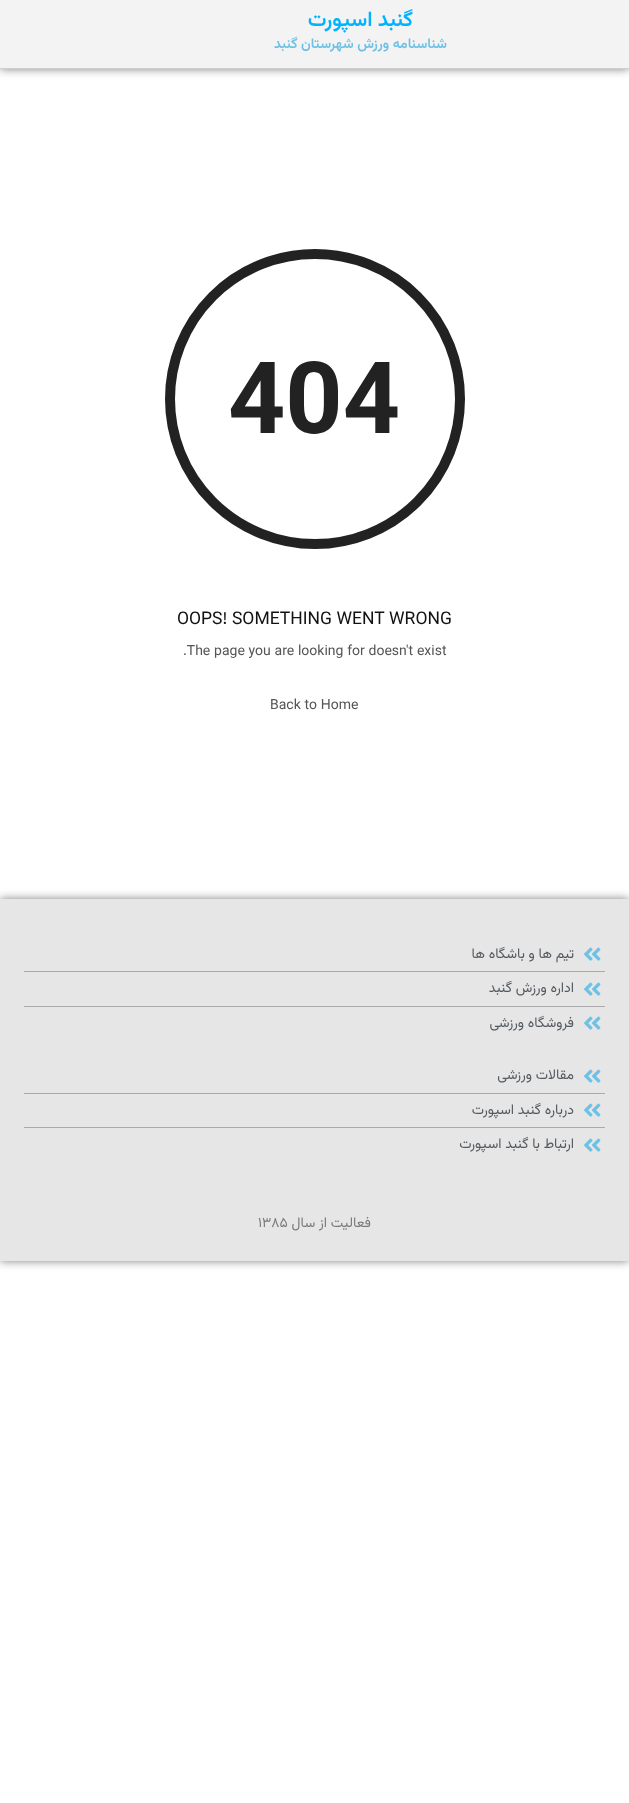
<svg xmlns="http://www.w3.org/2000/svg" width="629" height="1803">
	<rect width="100%" height="100%" fill="#FFFFFF" />
	<rect x="0" y="0" width="629" height="69" fill="#000000" fill-opacity="0.5" filter="blur(5px)" />
	<rect x="0" y="68" width="629" height="1" fill="#CFCFCF" />
	<rect x="0" y="0" width="629" height="68" fill="#F3F3F3" />
	<text x="413" y="26" font-family="Vazirmatn" font-size="21" font-weight="600" direction="rtl" fill="#00B3FF">گنبد اسپورت</text>
	<text x="447" y="48" font-family="Vazirmatn" font-size="14" font-weight="600" direction="rtl" fill="#6EC1E4">شناسنامه ورزش شهرستان گنبد</text>
	<circle cx="315" cy="399" r="145" fill="none" stroke="#222222" stroke-width="10" />
	<text x="228" y="433" font-family="Vazirmatn" font-size="100" font-weight="700" fill="#222222">404</text>
	<text x="177" y="624" font-family="Vazirmatn" font-size="17.5" fill="#121212">OOPS! SOMETHING WENT WRONG</text>
	<g font-family="Vazirmatn" font-size="14" fill="#555555">
		<text x="183" y="655">.The page you are looking for doesn't exist</text>
		<text x="270" y="709">Back to Home</text>
	</g>
	<rect x="0" y="899" width="629" height="362" fill="#000000" fill-opacity="0.5" filter="blur(5px)" />
	<rect x="0" y="899" width="629" height="362" fill="#E6E6E6" />
	<image x="584" y="947" width="17" height="14" href="assets/img1.png" />
	<text x="574" y="958" font-family="Vazirmatn" font-size="14" direction="rtl" fill="#54595F">تیم ها و باشگاه ها</text>
	<rect x="24" y="971" width="581" height="1" fill="#AAAAAA" />
	<image x="584" y="982" width="17" height="14" href="assets/img1.png" />
	<text x="574" y="992" font-family="Vazirmatn" font-size="14" direction="rtl" fill="#54595F">اداره ورزش گنبد</text>
	<rect x="24" y="1006" width="581" height="1" fill="#AAAAAA" />
	<image x="584" y="1016" width="17" height="14" href="assets/img1.png" />
	<text x="574" y="1027" font-family="Vazirmatn" font-size="14" direction="rtl" fill="#54595F">فروشگاه ورزشی</text>
	<image x="584" y="1069" width="17" height="14" href="assets/img1.png" />
	<text x="574" y="1079" font-family="Vazirmatn" font-size="14" direction="rtl" fill="#54595F">مقالات ورزشی</text>
	<rect x="24" y="1093" width="581" height="1" fill="#AAAAAA" />
	<image x="584" y="1103" width="17" height="14" href="assets/img1.png" />
	<text x="574" y="1114" font-family="Vazirmatn" font-size="14" direction="rtl" fill="#54595F">درباره گنبد اسپورت</text>
	<rect x="24" y="1127" width="581" height="1" fill="#AAAAAA" />
	<image x="584" y="1138" width="17" height="14" href="assets/img1.png" />
	<text x="574" y="1148" font-family="Vazirmatn" font-size="14" direction="rtl" fill="#54595F">ارتباط با گنبد اسپورت</text>
	<text x="371" y="1227" font-family="Vazirmatn" font-size="14" direction="rtl" fill="#7A7A7A">فعالیت از سال</text>
	<text x="258" y="1227" font-family="Vazirmatn" font-size="14" fill="#7A7A7A">۱۳۸۵</text>
</svg>
